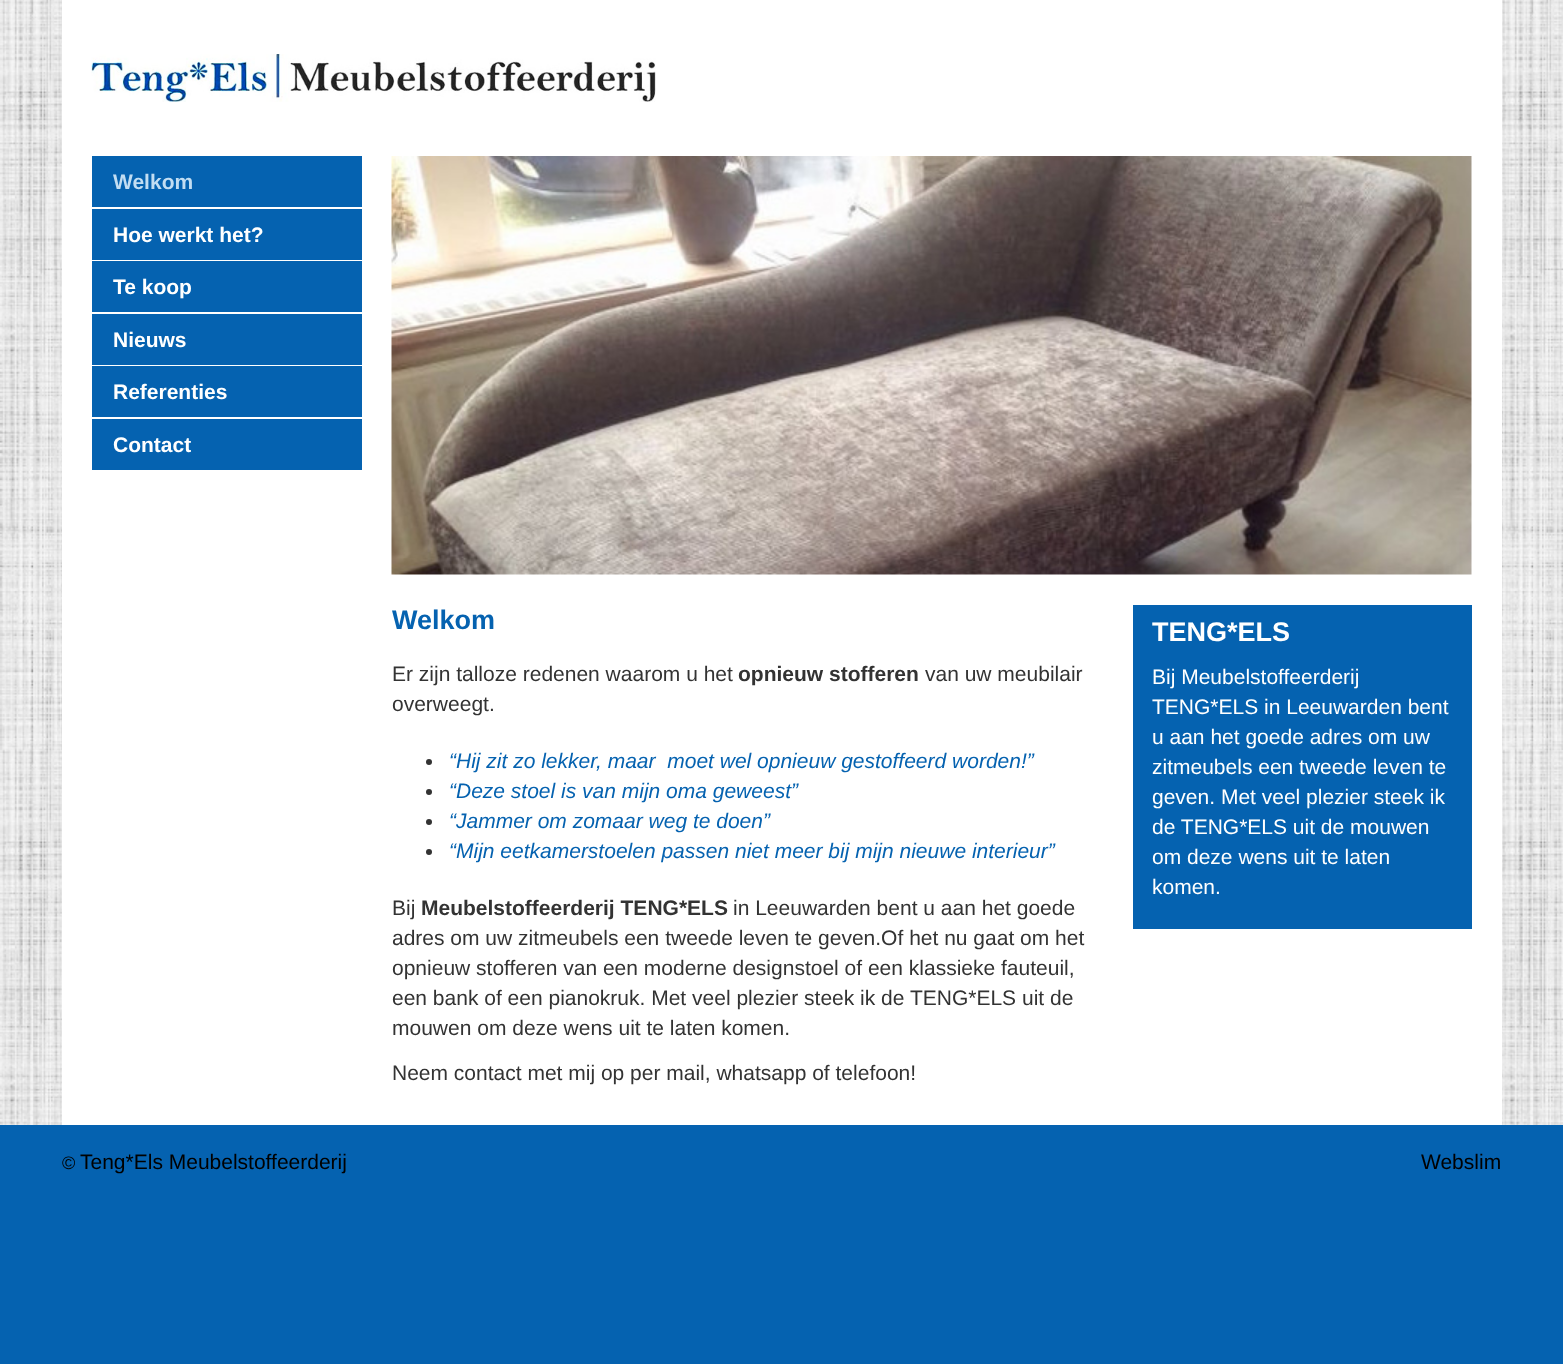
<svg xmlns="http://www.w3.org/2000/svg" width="1563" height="1364">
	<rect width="100%" height="100%" fill="#0562B0" />
	<image x="0" y="0" width="1563" height="1125" href="assets/img1.png" />
	<rect x="62" y="0" width="1440" height="1125" fill="#FFFFFF" />
	<image x="91" y="54" width="565" height="48" href="assets/img2.png" />
	<rect x="92" y="156" width="270" height="51" fill="#0562B0" />
	<text x="113" y="189" font-family="Liberation Sans" font-size="21" font-weight="700" fill="#C2DDF2">Welkom</text>
	<rect x="92" y="209" width="270" height="51" fill="#0562B0" />
	<text x="113" y="242" font-family="Liberation Sans" font-size="21" font-weight="700" fill="#FFFFFF">Hoe werkt het?</text>
	<rect x="92" y="261" width="270" height="51" fill="#0562B0" />
	<text x="113" y="294" font-family="Liberation Sans" font-size="21" font-weight="700" fill="#FFFFFF">Te koop</text>
	<rect x="92" y="314" width="270" height="51" fill="#0562B0" />
	<text x="113" y="347" font-family="Liberation Sans" font-size="21" font-weight="700" fill="#FFFFFF">Nieuws</text>
	<rect x="92" y="366" width="270" height="51" fill="#0562B0" />
	<text x="113" y="399" font-family="Liberation Sans" font-size="21" font-weight="700" fill="#FFFFFF">Referenties</text>
	<rect x="92" y="419" width="270" height="51" fill="#0562B0" />
	<text x="113" y="452" font-family="Liberation Sans" font-size="21" font-weight="700" fill="#FFFFFF">Contact</text>
	<image x="391" y="156" width="1081" height="419" href="assets/img3.png" />
	<text x="392" y="629" font-family="Liberation Sans" font-size="27" font-weight="700" fill="#0562B0">Welkom</text>
	<text x="392" y="681" font-family="Liberation Sans" font-size="21" fill="#333333">Er zijn talloze redenen waarom u het</text>
	<text x="738" y="681" font-family="Liberation Sans" font-size="21" font-weight="700" fill="#333333">opnieuw stofferen</text>
	<g font-family="Liberation Sans" font-size="21" fill="#333333">
		<text x="925" y="681">van uw meubilair</text>
		<text x="392" y="711">overweegt.</text>
	</g>
	<circle cx="429" cy="762" r="3" fill="#333333" />
	<text x="449" y="768" font-family="Liberation Sans" font-size="21" font-style="italic" fill="#0562B0" xml:space="preserve">“Hij zit zo lekker, maar  moet wel opnieuw gestoffeerd worden!”</text>
	<circle cx="429" cy="792" r="3" fill="#333333" />
	<text x="449" y="798" font-family="Liberation Sans" font-size="21" font-style="italic" fill="#0562B0">“Deze stoel is van mijn oma geweest”</text>
	<circle cx="429" cy="822" r="3" fill="#333333" />
	<text x="449" y="828" font-family="Liberation Sans" font-size="21" font-style="italic" fill="#0562B0">“Jammer om zomaar weg te doen”</text>
	<circle cx="429" cy="852" r="3" fill="#333333" />
	<text x="449" y="858" font-family="Liberation Sans" font-size="21" font-style="italic" fill="#0562B0">“Mijn eetkamerstoelen passen niet meer bij mijn nieuwe interieur”</text>
	<text x="392" y="915" font-family="Liberation Sans" font-size="21" fill="#333333">Bij</text>
	<text x="421" y="915" font-family="Liberation Sans" font-size="21" font-weight="700" fill="#333333">Meubelstoffeerderij TENG*ELS</text>
	<g font-family="Liberation Sans" font-size="21" fill="#333333">
		<text x="733" y="915">in Leeuwarden bent u aan het goede</text>
		<text x="392" y="945">adres om uw zitmeubels een tweede leven te geven.Of het nu gaat om het</text>
		<text x="392" y="975">opnieuw stofferen van een moderne designstoel of een klassieke fauteuil,</text>
		<text x="392" y="1005">een bank of een pianokruk. Met veel plezier steek ik de TENG*ELS uit de</text>
		<text x="392" y="1035">mouwen om deze wens uit te laten komen.</text>
		<text x="392" y="1080">Neem contact met mij op per mail, whatsapp of telefoon!</text>
	</g>
	<rect x="1133" y="605" width="339" height="324" fill="#0562B0" />
	<text x="1152" y="641" font-family="Liberation Sans" font-size="27" font-weight="700" fill="#FFFFFF">TENG*ELS</text>
	<g font-family="Liberation Sans" font-size="21" fill="#FFFFFF">
		<text x="1152" y="684">Bij Meubelstoffeerderij</text>
		<text x="1152" y="714">TENG*ELS in Leeuwarden bent</text>
		<text x="1152" y="744">u aan het goede adres om uw</text>
		<text x="1152" y="774">zitmeubels een tweede leven te</text>
		<text x="1152" y="804">geven. Met veel plezier steek ik</text>
		<text x="1152" y="834">de TENG*ELS uit de mouwen</text>
		<text x="1152" y="864">om deze wens uit te laten</text>
		<text x="1152" y="894">komen.</text>
	</g>
	<text x="62" y="1169" font-family="Liberation Sans" font-size="18" fill="#000000">©</text>
	<g font-family="Liberation Sans" font-size="21" fill="#000000">
		<text x="80" y="1169">Teng*Els Meubelstoffeerderij</text>
		<text x="1421" y="1169">Webslim</text>
	</g>
</svg>
